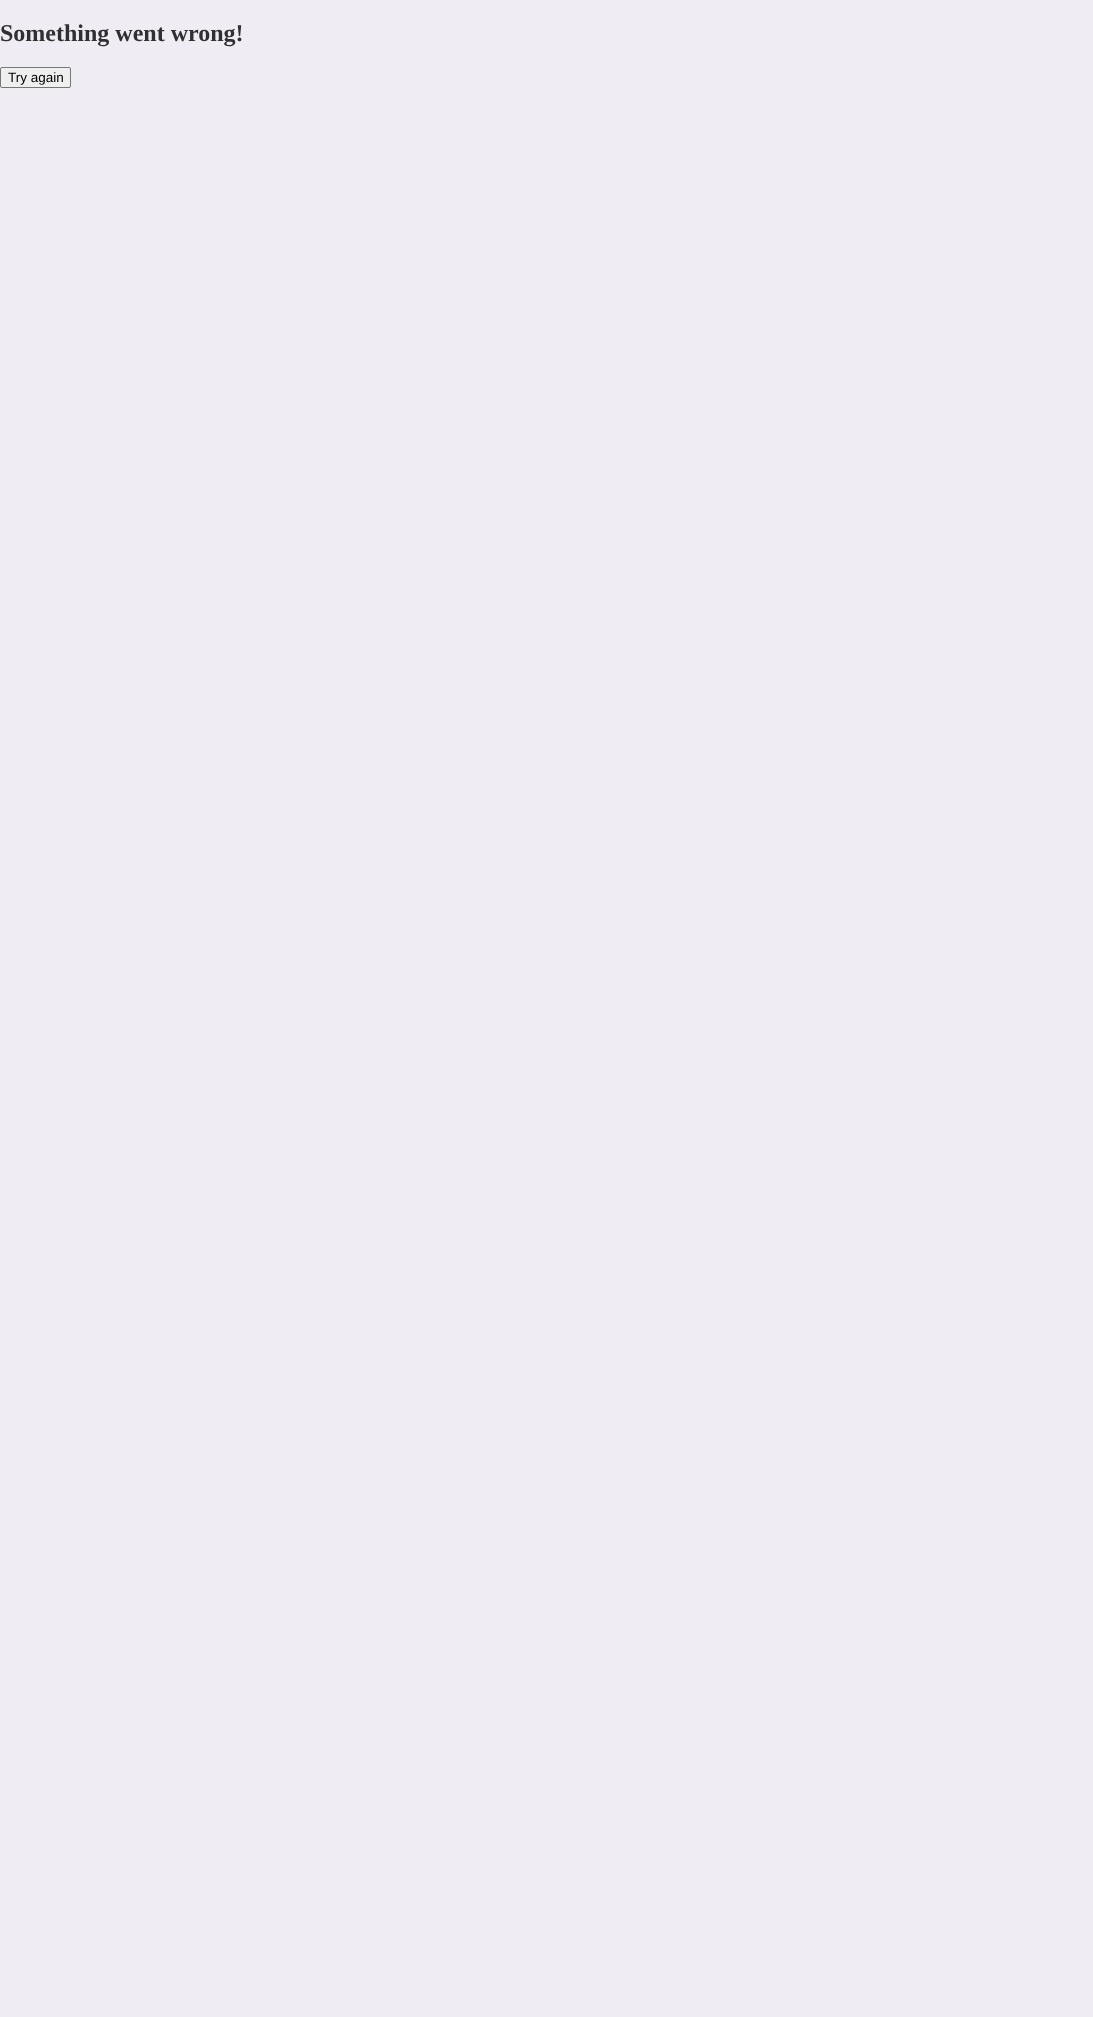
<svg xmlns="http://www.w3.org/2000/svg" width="1093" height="2017">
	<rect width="100%" height="100%" fill="#F0ECF4" />
	<text x="0" y="41" font-family="Liberation Serif" font-size="24" font-weight="700" fill="#302F31">Something went wrong!</text>
	<rect x="0.5" y="67.5" width="70" height="20" rx="1.5" fill="#EFEFEF" stroke="#767676" />
	<text x="8" y="82" font-family="Liberation Sans" font-size="13.5" fill="#000000">Try again</text>
</svg>
